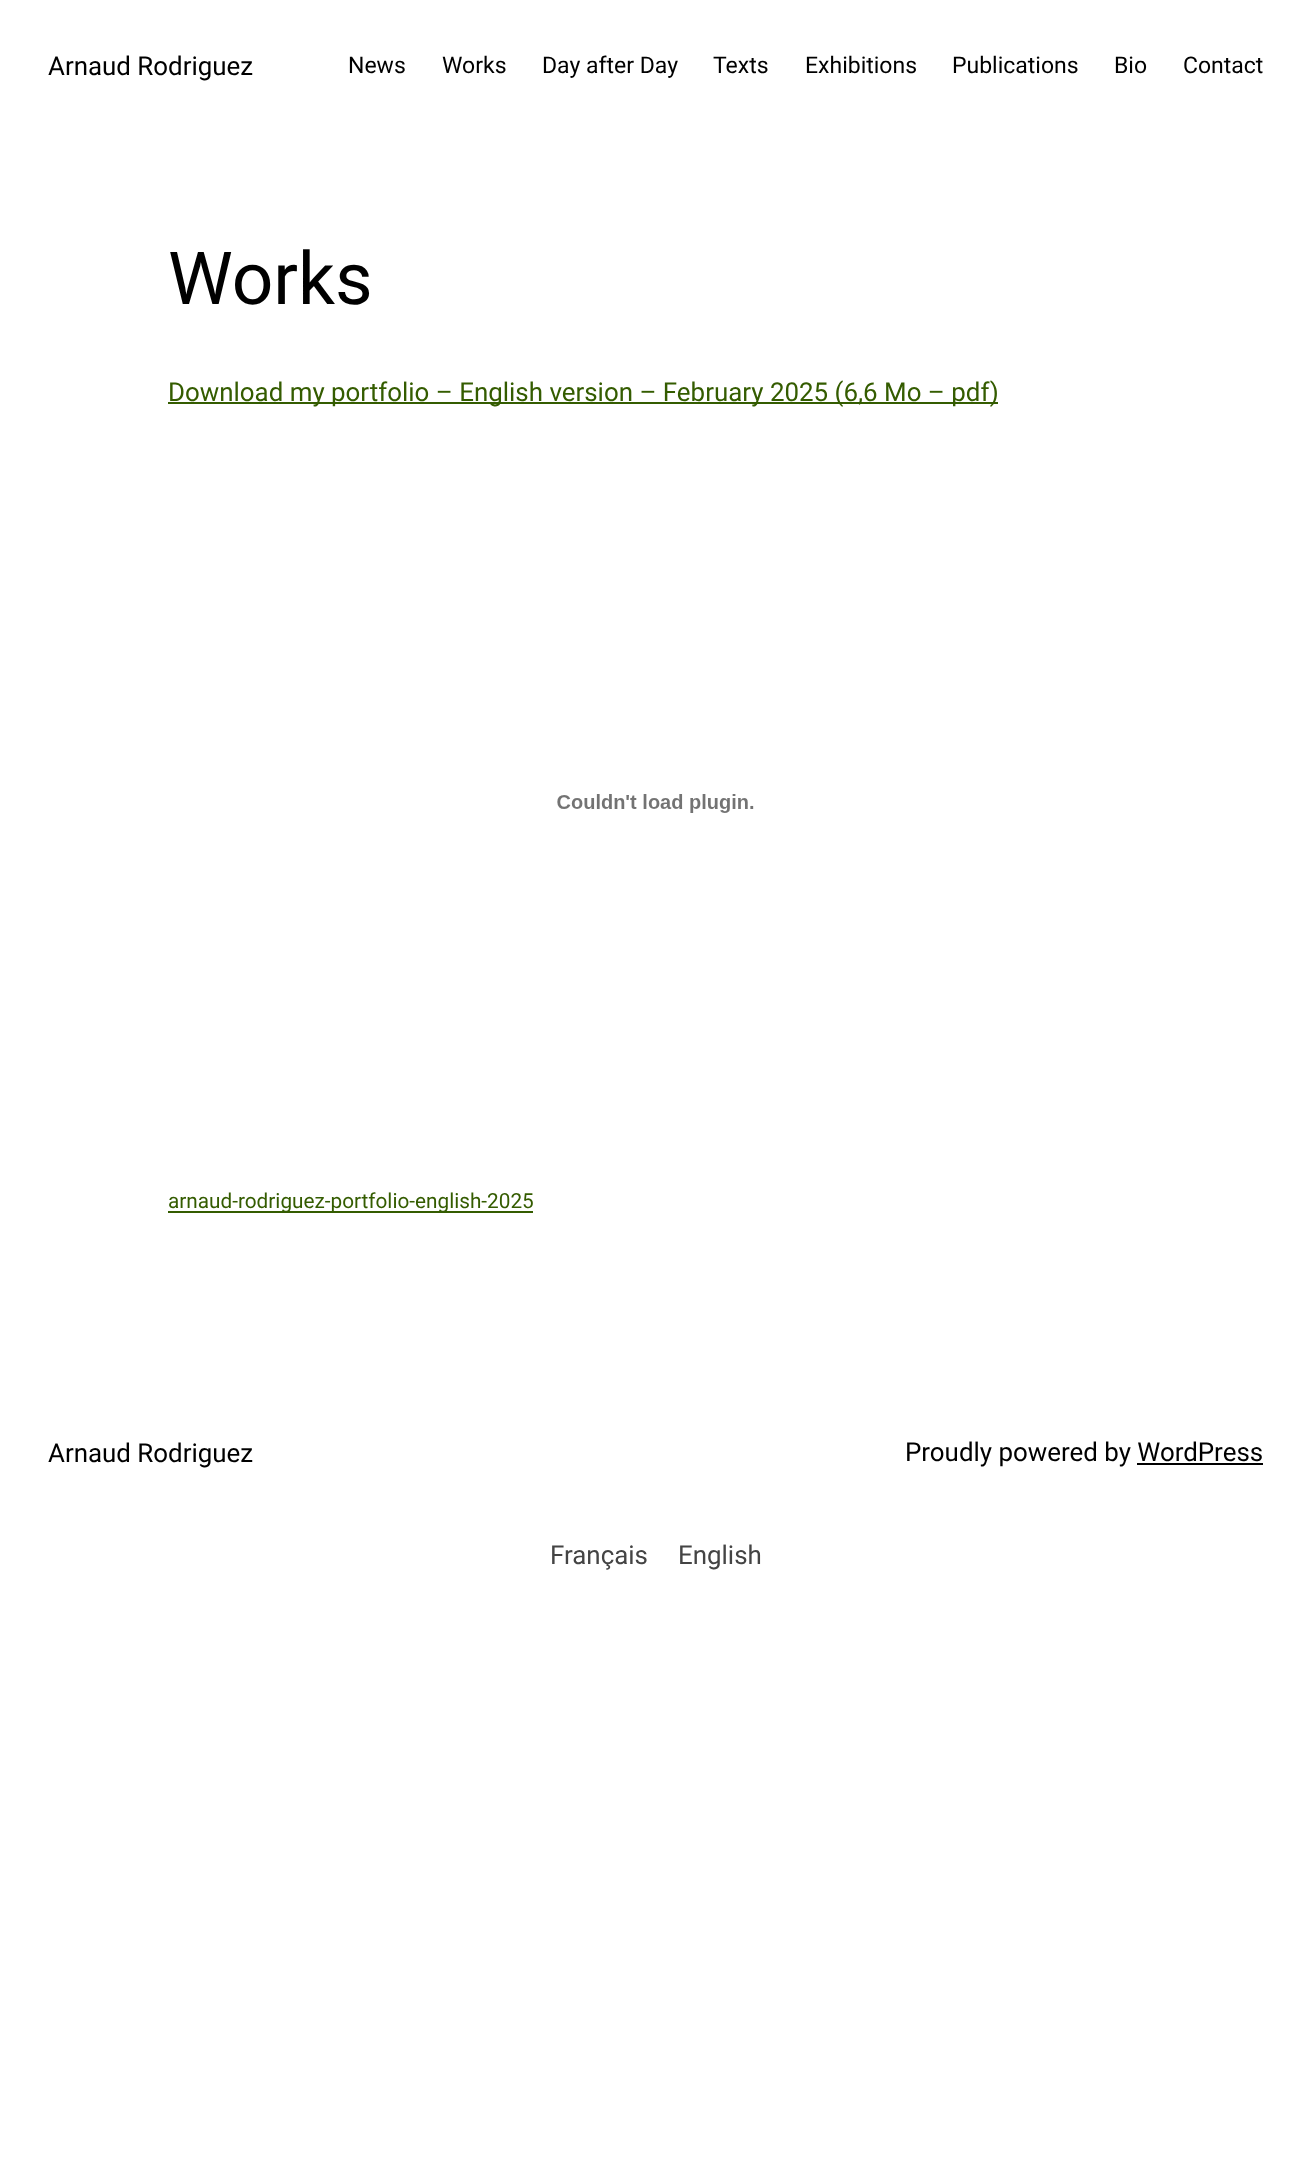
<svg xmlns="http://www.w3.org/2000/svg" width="1310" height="2184">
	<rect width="100%" height="100%" fill="#FFFFFF" />
	<text x="48" y="75" font-family="Roboto" font-size="25.9" fill="#000000">Arnaud Rodriguez</text>
	<g font-family="Roboto" font-size="23" fill="#000000">
		<text x="348" y="73">News</text>
		<text x="442" y="73">Works</text>
		<text x="542" y="73">Day after Day</text>
		<text x="713" y="73">Texts</text>
		<text x="805" y="73">Exhibitions</text>
		<text x="952" y="73">Publications</text>
		<text x="1114" y="73">Bio</text>
		<text x="1183" y="73">Contact</text>
	</g>
	<text x="168" y="304" font-family="Roboto" font-size="73" fill="#000000">Works</text>
	<rect x="168" y="402" width="830" height="2" fill="#345C00" />
	<text x="168" y="401" font-family="Roboto" font-size="25.9" fill="#345C00">Download my portfolio – English version – February 2025 (6,6 Mo – pdf)</text>
	<image x="557" y="794" width="197" height="19" href="assets/img1.png" />
	<rect x="168" y="1211" width="365" height="2" fill="#345C00" />
	<text x="168" y="1208" font-family="Roboto" font-size="20.75" fill="#345C00">arnaud-rodriguez-portfolio-english-2025</text>
	<g font-family="Roboto" font-size="25.9" fill="#000000">
		<text x="48" y="1462">Arnaud Rodriguez</text>
		<text x="905" y="1461">Proudly powered by WordPress</text>
	</g>
	<rect x="1137" y="1463" width="126" height="2" fill="#000000" />
	<g font-family="Roboto" font-size="25.9" fill="#444444">
		<text x="550" y="1564">Français</text>
		<text x="678" y="1564">English</text>
	</g>
</svg>
